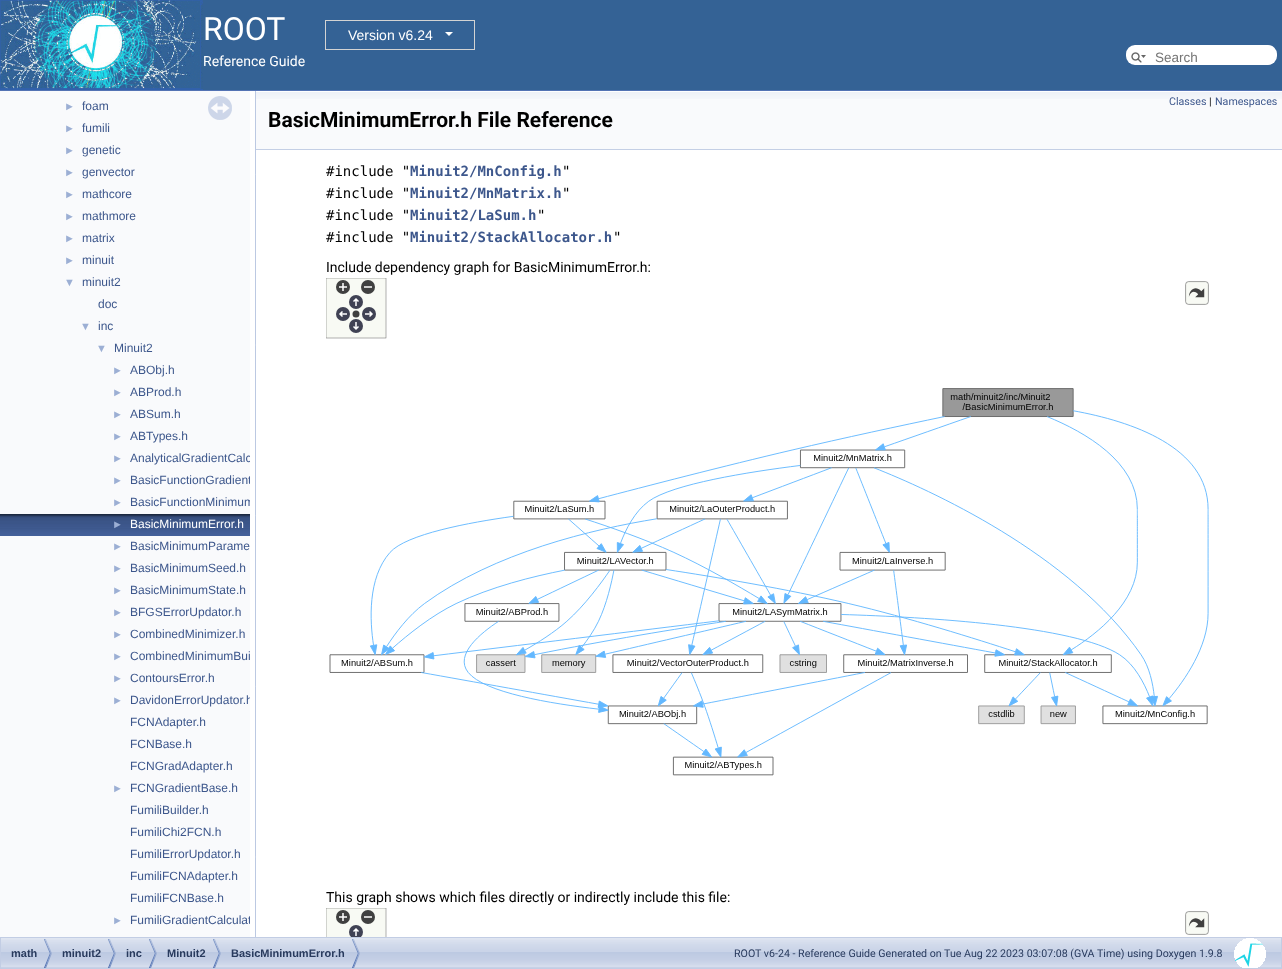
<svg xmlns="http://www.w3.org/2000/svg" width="1282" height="969">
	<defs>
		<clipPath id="clip1"><rect x="0" y="91" width="250" height="846" /></clipPath>
	</defs>
	<rect width="100%" height="100%" fill="#FFFFFF" />
	<rect x="0" y="90" width="1282" height="1" fill="#5373B4" />
	<rect x="203" y="0" width="1079" height="90" fill="#346295" />
	<image x="0" y="0" width="203" height="90" href="assets/img1.png" />
	<text x="203" y="40" font-family="Roboto" font-size="32" fill="#FFFFFF">ROOT</text>
	<rect x="325.5" y="20.5" width="149" height="29" fill="none" stroke="#D3D3D3" />
	<text x="348" y="40" font-family="Liberation Sans" font-size="14" fill="#FFFFFF">Version v6.24</text>
	<path d="M445 32H453L449 36Z" fill="#FFFFFF" />
	<text x="203" y="66" font-family="Roboto" font-size="14" fill="#FFFFFF">Reference Guide</text>
	<rect x="1126" y="45" width="151" height="20" rx="9" fill="#FFFFFF" />
	<image x="1131" y="52" width="15" height="11" href="assets/img2.png" />
	<text x="1155" y="62" font-family="Liberation Sans" font-size="13.5" fill="#757575">Search</text>
	<rect x="0" y="91" width="250" height="846" fill="#F9FAFC" />
	<image x="208" y="96" width="24" height="24" href="assets/img3.png" />
	<text x="64" y="110" font-family="Liberation Sans" font-size="11" fill="#9CAFD4">►</text>
	<text x="82" y="110" font-family="Liberation Sans" font-size="12" fill="#3D578C">foam</text>
	<text x="64" y="132" font-family="Liberation Sans" font-size="11" fill="#9CAFD4">►</text>
	<text x="82" y="132" font-family="Liberation Sans" font-size="12" fill="#3D578C">fumili</text>
	<text x="64" y="154" font-family="Liberation Sans" font-size="11" fill="#9CAFD4">►</text>
	<text x="82" y="154" font-family="Liberation Sans" font-size="12" fill="#3D578C">genetic</text>
	<text x="64" y="176" font-family="Liberation Sans" font-size="11" fill="#9CAFD4">►</text>
	<text x="82" y="176" font-family="Liberation Sans" font-size="12" fill="#3D578C">genvector</text>
	<text x="64" y="198" font-family="Liberation Sans" font-size="11" fill="#9CAFD4">►</text>
	<text x="82" y="198" font-family="Liberation Sans" font-size="12" fill="#3D578C">mathcore</text>
	<text x="64" y="220" font-family="Liberation Sans" font-size="11" fill="#9CAFD4">►</text>
	<text x="82" y="220" font-family="Liberation Sans" font-size="12" fill="#3D578C">mathmore</text>
	<text x="64" y="242" font-family="Liberation Sans" font-size="11" fill="#9CAFD4">►</text>
	<text x="82" y="242" font-family="Liberation Sans" font-size="12" fill="#3D578C">matrix</text>
	<text x="64" y="264" font-family="Liberation Sans" font-size="11" fill="#9CAFD4">►</text>
	<text x="82" y="264" font-family="Liberation Sans" font-size="12" fill="#3D578C">minuit</text>
	<text x="64" y="286" font-family="Liberation Sans" font-size="11" fill="#9CAFD4">▼</text>
	<g font-family="Liberation Sans" font-size="12" fill="#3D578C">
		<text x="82" y="286">minuit2</text>
		<text x="98" y="308">doc</text>
	</g>
	<text x="80" y="330" font-family="Liberation Sans" font-size="11" fill="#9CAFD4">▼</text>
	<text x="98" y="330" font-family="Liberation Sans" font-size="12" fill="#3D578C">inc</text>
	<text x="96" y="352" font-family="Liberation Sans" font-size="11" fill="#9CAFD4">▼</text>
	<text x="114" y="352" font-family="Liberation Sans" font-size="12" fill="#3D578C">Minuit2</text>
	<text x="112" y="374" font-family="Liberation Sans" font-size="11" fill="#9CAFD4">►</text>
	<text x="130" y="374" font-family="Liberation Sans" font-size="12" fill="#3D578C">ABObj.h</text>
	<text x="112" y="396" font-family="Liberation Sans" font-size="11" fill="#9CAFD4">►</text>
	<text x="130" y="396" font-family="Liberation Sans" font-size="12" fill="#3D578C">ABProd.h</text>
	<text x="112" y="418" font-family="Liberation Sans" font-size="11" fill="#9CAFD4">►</text>
	<text x="130" y="418" font-family="Liberation Sans" font-size="12" fill="#3D578C">ABSum.h</text>
	<text x="112" y="440" font-family="Liberation Sans" font-size="11" fill="#9CAFD4">►</text>
	<text x="130" y="440" font-family="Liberation Sans" font-size="12" fill="#3D578C">ABTypes.h</text>
	<text x="112" y="462" font-family="Liberation Sans" font-size="11" fill="#9CAFD4">►</text>
	<g clip-path="url(#clip1)">
		<text x="130" y="462" font-family="Liberation Sans" font-size="12" fill="#3D578C">AnalyticalGradientCalc</text>
	</g>
	<text x="112" y="484" font-family="Liberation Sans" font-size="11" fill="#9CAFD4">►</text>
	<g clip-path="url(#clip1)">
		<text x="130" y="484" font-family="Liberation Sans" font-size="12" fill="#3D578C">BasicFunctionGradient</text>
	</g>
	<text x="112" y="506" font-family="Liberation Sans" font-size="11" fill="#9CAFD4">►</text>
	<g clip-path="url(#clip1)">
		<text x="130" y="506" font-family="Liberation Sans" font-size="12" fill="#3D578C">BasicFunctionMinimum</text>
	</g>
	<image x="0" y="514" width="250" height="22" href="assets/img4.png" />
	<text x="112" y="528" font-family="Liberation Sans" font-size="11" fill="#9CAFD4">►</text>
	<text x="130" y="528" font-family="Liberation Sans" font-size="12" fill="#FFFFFF">BasicMinimumError.h</text>
	<text x="112" y="550" font-family="Liberation Sans" font-size="11" fill="#9CAFD4">►</text>
	<text x="130" y="550" font-family="Liberation Sans" font-size="12" fill="#3D578C">BasicMinimumParame</text>
	<text x="112" y="572" font-family="Liberation Sans" font-size="11" fill="#9CAFD4">►</text>
	<text x="130" y="572" font-family="Liberation Sans" font-size="12" fill="#3D578C">BasicMinimumSeed.h</text>
	<text x="112" y="594" font-family="Liberation Sans" font-size="11" fill="#9CAFD4">►</text>
	<text x="130" y="594" font-family="Liberation Sans" font-size="12" fill="#3D578C">BasicMinimumState.h</text>
	<text x="112" y="616" font-family="Liberation Sans" font-size="11" fill="#9CAFD4">►</text>
	<text x="130" y="616" font-family="Liberation Sans" font-size="12" fill="#3D578C">BFGSErrorUpdator.h</text>
	<text x="112" y="638" font-family="Liberation Sans" font-size="11" fill="#9CAFD4">►</text>
	<text x="130" y="638" font-family="Liberation Sans" font-size="12" fill="#3D578C">CombinedMinimizer.h</text>
	<text x="112" y="660" font-family="Liberation Sans" font-size="11" fill="#9CAFD4">►</text>
	<text x="130" y="660" font-family="Liberation Sans" font-size="12" fill="#3D578C">CombinedMinimumBui</text>
	<text x="112" y="682" font-family="Liberation Sans" font-size="11" fill="#9CAFD4">►</text>
	<text x="130" y="682" font-family="Liberation Sans" font-size="12" fill="#3D578C">ContoursError.h</text>
	<text x="112" y="704" font-family="Liberation Sans" font-size="11" fill="#9CAFD4">►</text>
	<g clip-path="url(#clip1)">
		<text x="130" y="704" font-family="Liberation Sans" font-size="12" fill="#3D578C">DavidonErrorUpdator.h</text>
	</g>
	<g font-family="Liberation Sans" font-size="12" fill="#3D578C">
		<text x="130" y="726">FCNAdapter.h</text>
		<text x="130" y="748">FCNBase.h</text>
		<text x="130" y="770">FCNGradAdapter.h</text>
	</g>
	<text x="112" y="792" font-family="Liberation Sans" font-size="11" fill="#9CAFD4">►</text>
	<g font-family="Liberation Sans" font-size="12" fill="#3D578C">
		<text x="130" y="792">FCNGradientBase.h</text>
		<text x="130" y="814">FumiliBuilder.h</text>
		<text x="130" y="836">FumiliChi2FCN.h</text>
		<text x="130" y="858">FumiliErrorUpdator.h</text>
		<text x="130" y="880">FumiliFCNAdapter.h</text>
		<text x="130" y="902">FumiliFCNBase.h</text>
	</g>
	<text x="112" y="924" font-family="Liberation Sans" font-size="11" fill="#9CAFD4">►</text>
	<g clip-path="url(#clip1)">
		<text x="130" y="924" font-family="Liberation Sans" font-size="12" fill="#3D578C">FumiliGradientCalculat</text>
	</g>
	<image x="255" y="91" width="1" height="846" href="assets/img5.png" />
	<rect x="256" y="99" width="1026" height="50" fill="#F9FAFC" />
	<image x="256" y="91" width="1026" height="8" href="assets/img6.png" />
	<rect x="256" y="149" width="1026" height="1" fill="#C4CFE5" />
	<text x="1169" y="105" font-family="Roboto" font-size="10.65" fill="#3D578C">Classes</text>
	<text x="1209" y="105" font-family="Roboto" font-size="10.65" fill="#000000">|</text>
	<text x="1215" y="105" font-family="Roboto" font-size="10.65" fill="#3D578C">Namespaces</text>
	<text x="268" y="127" font-family="Roboto" font-size="21" font-weight="700" fill="#000000">BasicMinimumError.h File Reference</text>
	<text x="326" y="176" font-family="DejaVu Sans Mono" font-size="14" fill="#000000">#include "</text>
	<text x="410" y="176" font-family="DejaVu Sans Mono" font-size="14" font-weight="700" fill="#3D578C">Minuit2/MnConfig.h</text>
	<g font-family="DejaVu Sans Mono" font-size="14" fill="#000000">
		<text x="562" y="176">"</text>
		<text x="326" y="198">#include "</text>
	</g>
	<text x="410" y="198" font-family="DejaVu Sans Mono" font-size="14" font-weight="700" fill="#3D578C">Minuit2/MnMatrix.h</text>
	<g font-family="DejaVu Sans Mono" font-size="14" fill="#000000">
		<text x="562" y="198">"</text>
		<text x="326" y="220">#include "</text>
	</g>
	<text x="410" y="220" font-family="DejaVu Sans Mono" font-size="14" font-weight="700" fill="#3D578C">Minuit2/LaSum.h</text>
	<g font-family="DejaVu Sans Mono" font-size="14" fill="#000000">
		<text x="537" y="220">"</text>
		<text x="326" y="242">#include "</text>
	</g>
	<text x="410" y="242" font-family="DejaVu Sans Mono" font-size="14" font-weight="700" fill="#3D578C">Minuit2/StackAllocator.h</text>
	<text x="613" y="242" font-family="DejaVu Sans Mono" font-size="14" fill="#000000">"</text>
	<text x="326" y="272" font-family="Roboto" font-size="14" fill="#000000">Include dependency graph for BasicMinimumError.h:</text>
	<image x="326" y="278" width="883" height="498" href="assets/img7.png" />
	<text x="326" y="902" font-family="Roboto" font-size="14" fill="#000000">This graph shows which files directly or indirectly include this file:</text>
	<image x="326" y="908" width="883" height="29" href="assets/img8.png" />
	<image x="1" y="938" width="1280" height="30" href="assets/img9.png" />
	<rect x="0.5" y="937.5" width="1281" height="31" fill="none" stroke="#C2CDE4" />
	<image x="44" y="939" width="8" height="29" href="assets/img10.png" />
	<text x="11" y="957" font-family="Liberation Sans" font-size="11" font-weight="700" fill="#283A5D">math</text>
	<image x="108" y="939" width="8" height="29" href="assets/img10.png" />
	<text x="62" y="957" font-family="Liberation Sans" font-size="11" font-weight="700" fill="#283A5D">minuit2</text>
	<image x="149" y="939" width="8" height="29" href="assets/img10.png" />
	<text x="126" y="957" font-family="Liberation Sans" font-size="11" font-weight="700" fill="#283A5D">inc</text>
	<image x="213" y="939" width="8" height="29" href="assets/img10.png" />
	<text x="167" y="957" font-family="Liberation Sans" font-size="11" font-weight="700" fill="#283A5D">Minuit2</text>
	<image x="352" y="939" width="8" height="29" href="assets/img10.png" />
	<text x="231" y="957" font-family="Liberation Sans" font-size="11" font-weight="700" fill="#283A5D">BasicMinimumError.h</text>
	<text x="734" y="957" font-family="Roboto" font-size="10.65" fill="#283A5D">ROOT v6-24 - Reference Guide Generated on Tue Aug 22 2023 03:07:08 (GVA Time) using Doxygen 1.9.8</text>
	<image x="1234" y="938" width="32" height="30" href="assets/img11.png" />
</svg>
